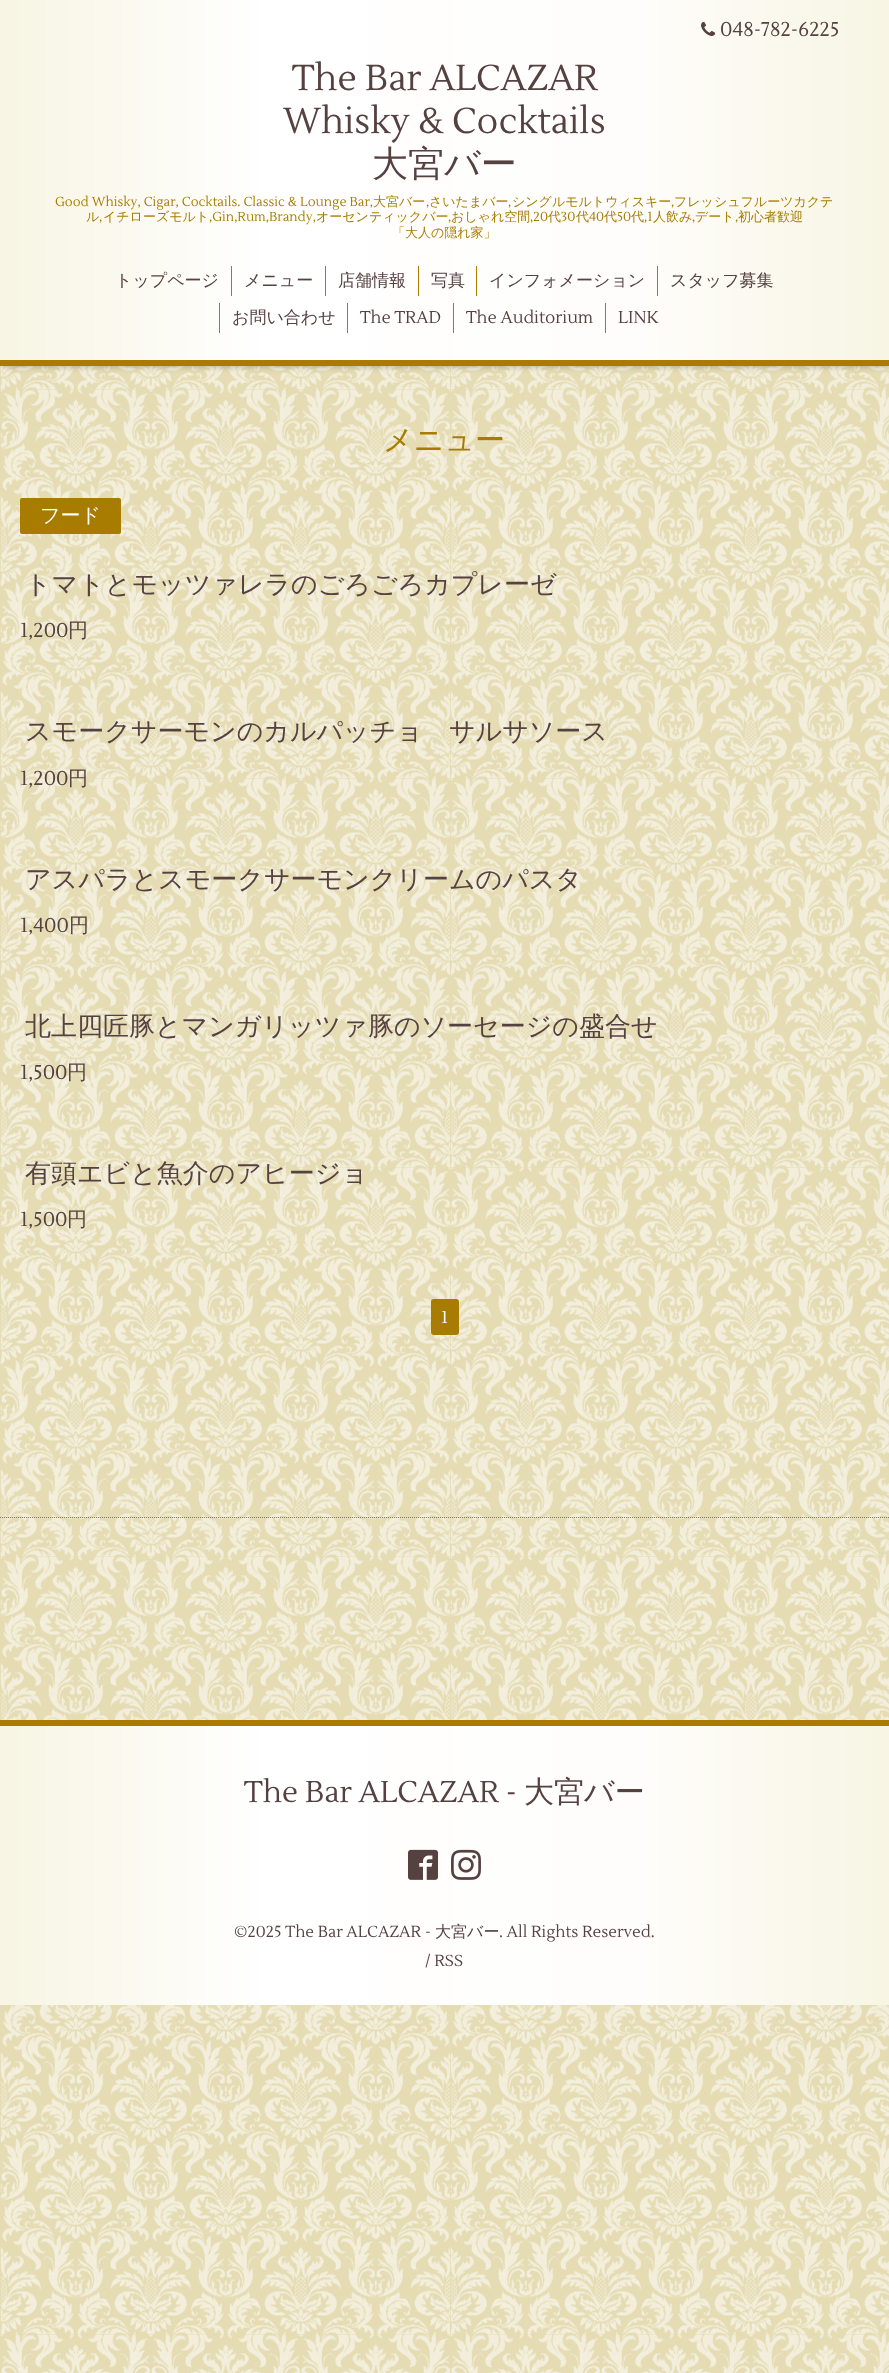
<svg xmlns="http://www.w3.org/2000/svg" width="889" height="2373">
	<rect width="100%" height="100%" fill="#E5DCB4" />
	<image x="0" y="366" width="889" height="2007" href="assets/img1.png" />
	<rect x="4" y="5" width="881" height="358" fill="#000000" fill-opacity="0.6" filter="blur(5px)" />
	<image x="0" y="0" width="889" height="360" href="assets/img2.png" />
	<rect x="0" y="360" width="889" height="6" fill="#A87C00" />
	<image x="701" y="21" width="15" height="15" href="assets/img3.png" />
	<text x="720" y="36" font-family="Lustria" font-size="20" fill="#564141">048-782-6225</text>
	<g font-family="Lustria" font-size="36" fill="#564141">
		<text x="292" y="90">The Bar ALCAZAR</text>
		<text x="283" y="133">Whisky &amp; Cocktails</text>
	</g>
	<text x="372" y="176" font-family="WenQuanYi Zen Hei" font-size="36" font-weight="500" fill="#564141">大宮バー</text>
	<text x="55" y="206" font-family="Lustria" font-size="13" fill="#A87C00">Good Whisky, Cigar, Cocktails. Classic &amp; Lounge Bar,</text>
	<text x="373" y="206" font-family="WenQuanYi Zen Hei" font-size="13" font-weight="500" fill="#A87C00">大宮バー</text>
	<text x="426" y="206" font-family="Lustria" font-size="13" fill="#A87C00">,</text>
	<text x="429" y="206" font-family="WenQuanYi Zen Hei" font-size="13" font-weight="500" fill="#A87C00">さいたまバー</text>
	<text x="508" y="206" font-family="Lustria" font-size="13" fill="#A87C00">,</text>
	<text x="512" y="206" font-family="WenQuanYi Zen Hei" font-size="13" font-weight="500" fill="#A87C00">シングルモルトウィスキー</text>
	<text x="671" y="206" font-family="Lustria" font-size="13" fill="#A87C00">,</text>
	<g font-family="WenQuanYi Zen Hei" font-size="13" font-weight="500" fill="#A87C00">
		<text x="674" y="206">フレッシュフルーツカクテ</text>
		<text x="86" y="221">ル</text>
	</g>
	<text x="99" y="221" font-family="Lustria" font-size="13" fill="#A87C00">,</text>
	<text x="103" y="221" font-family="WenQuanYi Zen Hei" font-size="13" font-weight="500" fill="#A87C00">イチローズモルト</text>
	<text x="209" y="221" font-family="Lustria" font-size="13" fill="#A87C00">,Gin,Rum,Brandy,</text>
	<text x="316" y="221" font-family="WenQuanYi Zen Hei" font-size="13" font-weight="500" fill="#A87C00">オーセンティックバー</text>
	<text x="448" y="221" font-family="Lustria" font-size="13" fill="#A87C00">,</text>
	<text x="451" y="221" font-family="WenQuanYi Zen Hei" font-size="13" font-weight="500" fill="#A87C00">おしゃれ空間</text>
	<text x="530" y="221" font-family="Lustria" font-size="13" fill="#A87C00">,20</text>
	<text x="548" y="221" font-family="WenQuanYi Zen Hei" font-size="13" font-weight="500" fill="#A87C00">代</text>
	<text x="561" y="221" font-family="Lustria" font-size="13" fill="#A87C00">30</text>
	<text x="576" y="221" font-family="WenQuanYi Zen Hei" font-size="13" font-weight="500" fill="#A87C00">代</text>
	<text x="589" y="221" font-family="Lustria" font-size="13" fill="#A87C00">40</text>
	<text x="604" y="221" font-family="WenQuanYi Zen Hei" font-size="13" font-weight="500" fill="#A87C00">代</text>
	<text x="617" y="221" font-family="Lustria" font-size="13" fill="#A87C00">50</text>
	<text x="631" y="221" font-family="WenQuanYi Zen Hei" font-size="13" font-weight="500" fill="#A87C00">代</text>
	<text x="644" y="221" font-family="Lustria" font-size="13" fill="#A87C00">,1</text>
	<text x="653" y="221" font-family="WenQuanYi Zen Hei" font-size="13" font-weight="500" fill="#A87C00">人飲み</text>
	<text x="692" y="221" font-family="Lustria" font-size="13" fill="#A87C00">,</text>
	<text x="695" y="221" font-family="WenQuanYi Zen Hei" font-size="13" font-weight="500" fill="#A87C00">デート</text>
	<text x="735" y="221" font-family="Lustria" font-size="13" fill="#A87C00">,</text>
	<g font-family="WenQuanYi Zen Hei" font-size="13" font-weight="500" fill="#A87C00">
		<text x="738" y="221">初心者歓迎</text>
		<text x="392" y="237">「大人の隠れ家」</text>
	</g>
	<text x="115" y="286" font-family="WenQuanYi Zen Hei" font-size="17" font-weight="500" fill="#564141">トップページ</text>
	<rect x="231" y="266" width="1" height="30" fill="#A87C00" />
	<text x="244" y="286" font-family="WenQuanYi Zen Hei" font-size="17" font-weight="500" fill="#564141">メニュー</text>
	<rect x="325" y="266" width="1" height="30" fill="#A87C00" />
	<text x="338" y="286" font-family="WenQuanYi Zen Hei" font-size="17" font-weight="500" fill="#564141">店舗情報</text>
	<rect x="418" y="266" width="1" height="30" fill="#A87C00" />
	<text x="431" y="286" font-family="WenQuanYi Zen Hei" font-size="17" font-weight="500" fill="#564141">写真</text>
	<rect x="476" y="266" width="1" height="30" fill="#A87C00" />
	<text x="489" y="286" font-family="WenQuanYi Zen Hei" font-size="17" font-weight="500" fill="#564141">インフォメーション</text>
	<rect x="657" y="266" width="1" height="30" fill="#A87C00" />
	<text x="670" y="286" font-family="WenQuanYi Zen Hei" font-size="17" font-weight="500" fill="#564141">スタッフ募集</text>
	<rect x="219" y="303" width="1" height="30" fill="#A87C00" />
	<text x="232" y="323" font-family="WenQuanYi Zen Hei" font-size="17" font-weight="500" fill="#564141">お問い合わせ</text>
	<rect x="347" y="303" width="1" height="30" fill="#A87C00" />
	<text x="360" y="323" font-family="Lustria" font-size="17" fill="#564141">The TRAD</text>
	<rect x="453" y="303" width="1" height="30" fill="#A87C00" />
	<text x="466" y="323" font-family="Lustria" font-size="17" fill="#564141">The Auditorium</text>
	<rect x="605" y="303" width="1" height="30" fill="#A87C00" />
	<text x="618" y="323" font-family="Lustria" font-size="17" fill="#564141">LINK</text>
	<text x="383" y="450" font-family="WenQuanYi Zen Hei" font-size="30" font-weight="500" fill="#A87C00">メニュー</text>
	<rect x="20" y="498" width="101" height="36" rx="2" fill="#A87C00" />
	<text x="40" y="522" font-family="WenQuanYi Zen Hei" font-size="20" font-weight="500" fill="#FFFFFF">フード</text>
	<text x="25" y="593" font-family="WenQuanYi Zen Hei" font-size="26" font-weight="500" fill="#564141">トマトとモッツァレラのごろごろカプレーゼ</text>
	<text x="20" y="637" font-family="Lustria" font-size="20" fill="#564141">1,200</text>
	<text x="68" y="637" font-family="WenQuanYi Zen Hei" font-size="20" font-weight="500" fill="#564141">円</text>
	<text x="25" y="740" font-family="WenQuanYi Zen Hei" font-size="26" font-weight="500" fill="#564141">スモークサーモンのカルパッチョ　サルサソース</text>
	<text x="20" y="785" font-family="Lustria" font-size="20" fill="#564141">1,200</text>
	<text x="68" y="785" font-family="WenQuanYi Zen Hei" font-size="20" font-weight="500" fill="#564141">円</text>
	<text x="25" y="888" font-family="WenQuanYi Zen Hei" font-size="26" font-weight="500" fill="#564141">アスパラとスモークサーモンクリームのパスタ</text>
	<text x="20" y="932" font-family="Lustria" font-size="20" fill="#564141">1,400</text>
	<text x="69" y="932" font-family="WenQuanYi Zen Hei" font-size="20" font-weight="500" fill="#564141">円</text>
	<text x="25" y="1035" font-family="WenQuanYi Zen Hei" font-size="26" font-weight="500" fill="#564141">北上四匠豚とマンガリッツァ豚のソーセージの盛合せ</text>
	<text x="20" y="1079" font-family="Lustria" font-size="20" fill="#564141">1,500</text>
	<text x="67" y="1079" font-family="WenQuanYi Zen Hei" font-size="20" font-weight="500" fill="#564141">円</text>
	<text x="25" y="1182" font-family="WenQuanYi Zen Hei" font-size="26" font-weight="500" fill="#564141">有頭エビと魚介のアヒージョ</text>
	<text x="20" y="1226" font-family="Lustria" font-size="20" fill="#564141">1,500</text>
	<text x="67" y="1226" font-family="WenQuanYi Zen Hei" font-size="20" font-weight="500" fill="#564141">円</text>
	<rect x="431" y="1299" width="28" height="36" rx="3" fill="#A87C00" />
	<text x="441" y="1323" font-family="Lustria" font-size="17" fill="#FFFFFF">1</text>
	<path d="M0 1517.5H889" fill="none" stroke="#A87C00" stroke-dasharray="1 1" />
	<image x="0" y="1726" width="889" height="279" href="assets/img4.png" />
	<rect x="0" y="1720" width="889" height="6" fill="#A87C00" />
	<text x="244" y="1802" font-family="Lustria" font-size="30" fill="#564141">The Bar ALCAZAR -</text>
	<text x="524" y="1802" font-family="WenQuanYi Zen Hei" font-size="30" font-weight="500" fill="#564141">大宮バー</text>
	<image x="408" y="1849" width="30" height="31" href="assets/img5.png" />
	<image x="451" y="1849" width="30" height="31" href="assets/img6.png" />
	<text x="234" y="1937" font-family="Lustria" font-size="16" fill="#564141">©2025 The Bar ALCAZAR -</text>
	<text x="435" y="1937" font-family="WenQuanYi Zen Hei" font-size="16" font-weight="500" fill="#564141">大宮バー</text>
	<g font-family="Lustria" font-size="16" fill="#564141">
		<text x="499" y="1937">. All Rights Reserved.</text>
		<text x="425" y="1966">/ RSS</text>
	</g>
</svg>
